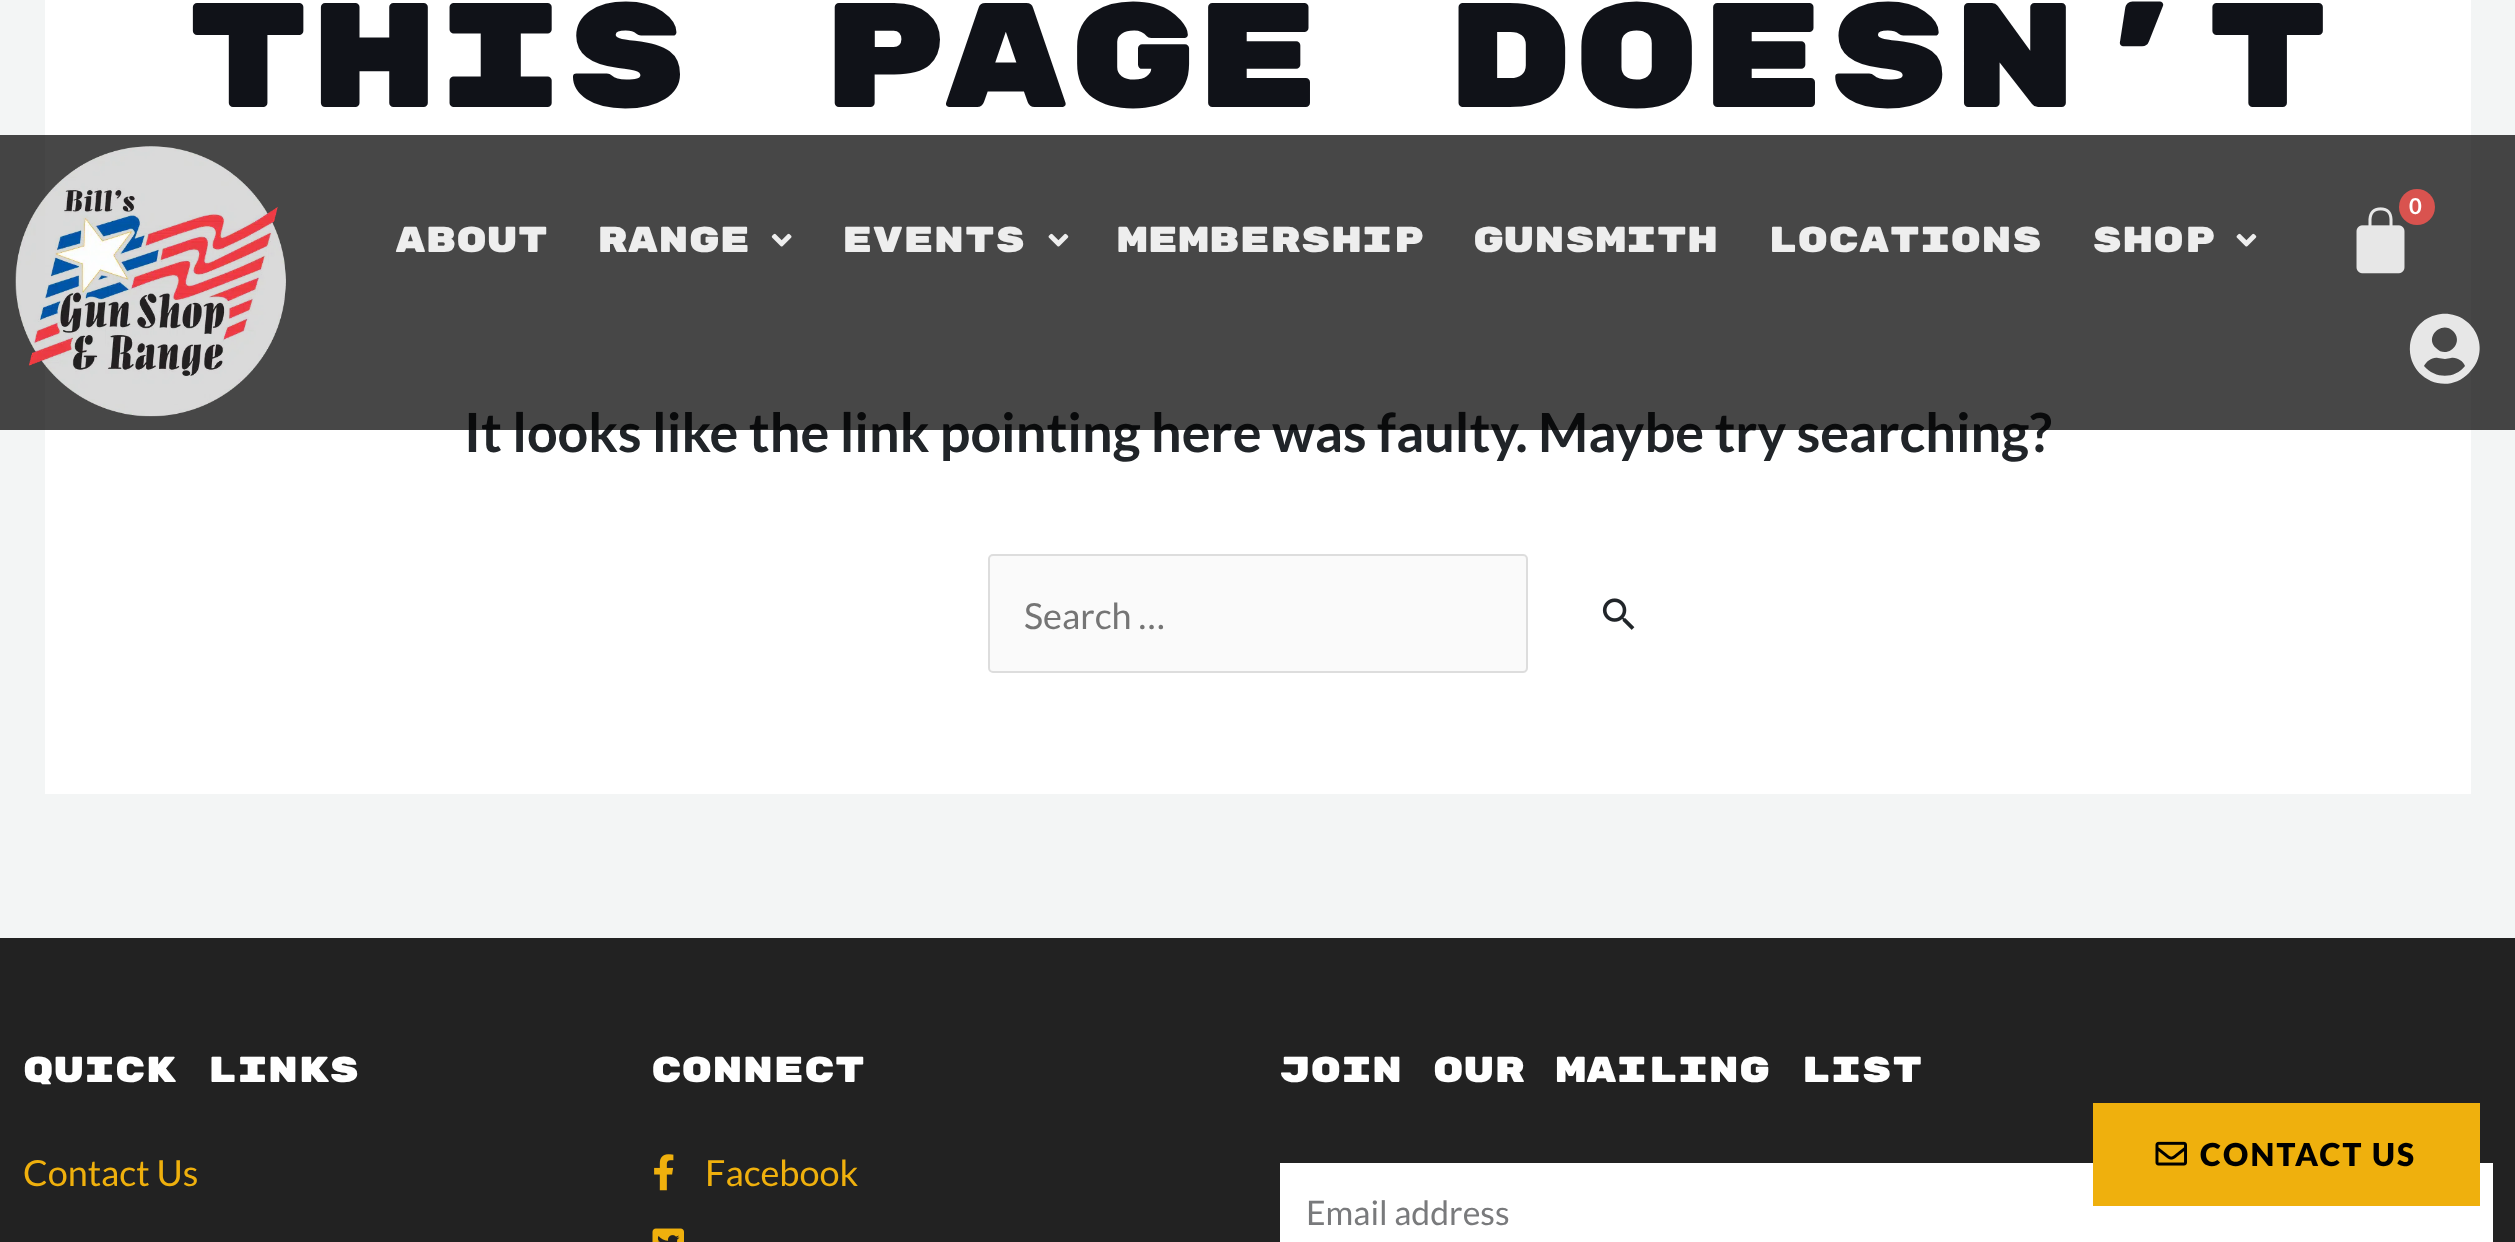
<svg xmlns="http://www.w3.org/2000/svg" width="2515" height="1242">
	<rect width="100%" height="100%" fill="#F3F5F5" />
	<rect x="45" y="0" width="2426" height="794" fill="#FFFFFF" />
	<text x="185" y="107" font-family="Rubik Mono One" font-size="148.5" fill="#101218">This page doesn't</text>
	<text x="464" y="452" font-family="Lato" font-size="54" font-weight="700" fill="#212529">It looks like the link pointing here was faulty. Maybe try searching?</text>
	<rect x="989" y="555" width="538" height="117" rx="4" fill="#FAFAFA" stroke="#DDDDDD" stroke-width="2" />
	<text x="1024" y="629" font-family="Lato" font-size="36" fill="#757575">Search …</text>
	<image x="1602" y="598" width="33" height="32" href="assets/img1.png" />
	<rect x="0" y="135" width="2515" height="295" fill="#000000" fill-opacity="0.72" />
	<image x="15" y="146" width="271" height="271" href="assets/img2.png" />
	<image x="2356" y="207" width="49" height="67" href="assets/img3.png" />
	<circle cx="2417" cy="207" r="18" fill="#D9534F" />
	<text x="2409" y="214" font-family="Lato" font-size="22" font-weight="700" letter-spacing="2.25" fill="#FFFFFF">0</text>
	<g font-family="Rubik Mono One" font-size="36" fill="#EEEEEE">
		<text x="395" y="252">About</text>
		<text x="597" y="252">Range</text>
	</g>
	<image x="771" y="233" width="21" height="14" href="assets/img4.png" />
	<text x="842" y="252" font-family="Rubik Mono One" font-size="36" fill="#EEEEEE">Events</text>
	<image x="1048" y="233" width="21" height="14" href="assets/img5.png" />
	<g font-family="Rubik Mono One" font-size="36" fill="#EEEEEE">
		<text x="1117" y="252">Membership</text>
		<text x="1473" y="252">Gunsmith</text>
		<text x="1767" y="252">Locations</text>
		<text x="2092" y="252">Shop</text>
	</g>
	<image x="2236" y="233" width="21" height="14" href="assets/img6.png" />
	<path d="M2420 324C2426 318 2433 315 2441 314C2474 311 2493 350 2469 373C2446 397 2407 378 2410 345C2411 337 2414 330 2420 324ZM2453 331C2442 320 2424 337 2436 348C2447 360 2465 343 2453 331ZM2424 366C2435 379 2455 379 2465 366C2463 361 2457 357 2451 358L2445 359L2438 358C2432 357 2427 361 2424 366Z" fill="#E7E7E7" />
	<rect x="0" y="938" width="2515" height="304" fill="#222222" />
	<text x="23" y="1082" font-family="Rubik Mono One" font-size="36" fill="#FFFFFF">Quick Links</text>
	<text x="23" y="1186" font-family="Lato" font-size="36" fill="#EFB00D">Contact Us</text>
	<text x="651" y="1082" font-family="Rubik Mono One" font-size="36" fill="#FFFFFF">Connect</text>
	<image x="654" y="1154" width="20" height="37" href="assets/img7.png" />
	<text x="705" y="1186" font-family="Lato" font-size="36" fill="#EFB00D">Facebook</text>
	<image x="652" y="1228" width="32" height="14" href="assets/img8.png" />
	<text x="1280" y="1082" font-family="Rubik Mono One" font-size="36" fill="#FFFFFF">Join Our Mailing List</text>
	<rect x="1280" y="1163" width="1213" height="79" fill="#FFFFFF" />
	<text x="1306" y="1225" font-family="Lato" font-size="33.75" fill="#797A7C">Email address</text>
	<rect x="2093" y="1103" width="387" height="103" fill="#EFB00D" />
	<image x="2155" y="1141" width="32" height="25" href="assets/img9.png" />
	<text x="2200" y="1166" font-family="Lato" font-size="31.5" font-weight="900" letter-spacing="2.25" fill="#000000">CONTACT US</text>
</svg>
